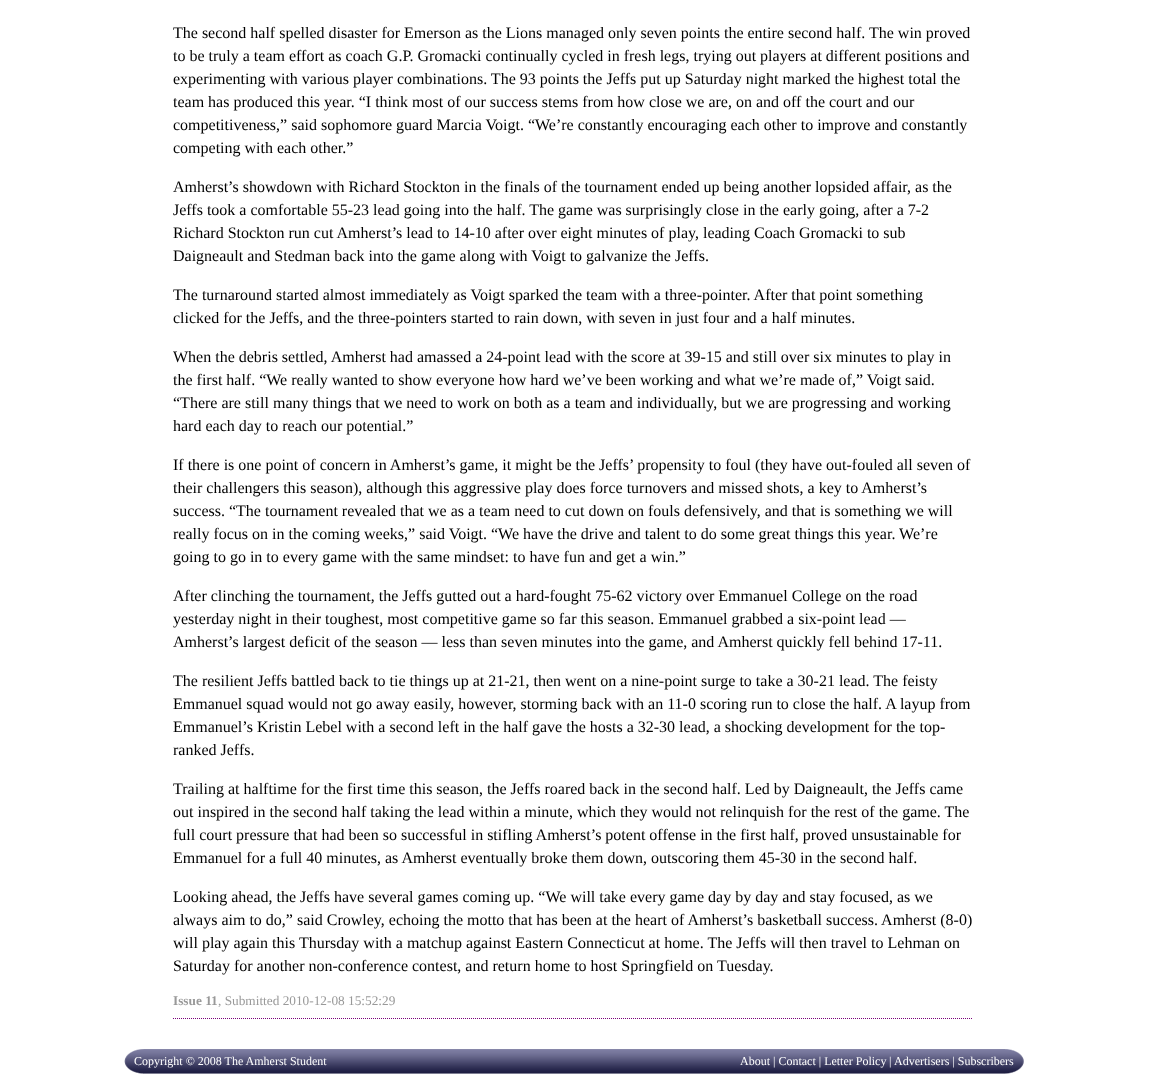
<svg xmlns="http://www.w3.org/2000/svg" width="1156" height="1082">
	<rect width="100%" height="100%" fill="#FFFFFF" />
	<g font-family="Liberation Serif" font-size="16" fill="#000000">
		<text x="173" y="38">The second half spelled disaster for Emerson as the Lions managed only seven points the entire second half. The win proved</text>
		<text x="173" y="61">to be truly a team effort as coach G.P. Gromacki continually cycled in fresh legs, trying out players at different positions and</text>
		<text x="173" y="84">experimenting with various player combinations. The 93 points the Jeffs put up Saturday night marked the highest total the</text>
		<text x="173" y="107">team has produced this year. “I think most of our success stems from how close we are, on and off the court and our</text>
		<text x="173" y="130">competitiveness,” said sophomore guard Marcia Voigt. “We’re constantly encouraging each other to improve and constantly</text>
		<text x="173" y="153">competing with each other.”</text>
		<text x="173" y="192">Amherst’s showdown with Richard Stockton in the finals of the tournament ended up being another lopsided affair, as the</text>
		<text x="173" y="215">Jeffs took a comfortable 55-23 lead going into the half. The game was surprisingly close in the early going, after a 7-2</text>
		<text x="173" y="238">Richard Stockton run cut Amherst’s lead to 14-10 after over eight minutes of play, leading Coach Gromacki to sub</text>
		<text x="173" y="261">Daigneault and Stedman back into the game along with Voigt to galvanize the Jeffs.</text>
		<text x="173" y="300">The turnaround started almost immediately as Voigt sparked the team with a three-pointer. After that point something</text>
		<text x="173" y="323">clicked for the Jeffs, and the three-pointers started to rain down, with seven in just four and a half minutes.</text>
		<text x="173" y="362">When the debris settled, Amherst had amassed a 24-point lead with the score at 39-15 and still over six minutes to play in</text>
		<text x="173" y="385">the first half. “We really wanted to show everyone how hard we’ve been working and what we’re made of,” Voigt said.</text>
		<text x="173" y="408">“There are still many things that we need to work on both as a team and individually, but we are progressing and working</text>
		<text x="173" y="431">hard each day to reach our potential.”</text>
		<text x="173" y="470">If there is one point of concern in Amherst’s game, it might be the Jeffs’ propensity to foul (they have out-fouled all seven of</text>
		<text x="173" y="493">their challengers this season), although this aggressive play does force turnovers and missed shots, a key to Amherst’s</text>
		<text x="173" y="516">success. “The tournament revealed that we as a team need to cut down on fouls defensively, and that is something we will</text>
		<text x="173" y="539">really focus on in the coming weeks,” said Voigt. “We have the drive and talent to do some great things this year. We’re</text>
		<text x="173" y="562">going to go in to every game with the same mindset: to have fun and get a win.”</text>
		<text x="173" y="601">After clinching the tournament, the Jeffs gutted out a hard-fought 75-62 victory over Emmanuel College on the road</text>
		<text x="173" y="624">yesterday night in their toughest, most competitive game so far this season. Emmanuel grabbed a six-point lead —</text>
		<text x="173" y="647">Amherst’s largest deficit of the season — less than seven minutes into the game, and Amherst quickly fell behind 17-11.</text>
		<text x="173" y="686">The resilient Jeffs battled back to tie things up at 21-21, then went on a nine-point surge to take a 30-21 lead. The feisty</text>
		<text x="173" y="709">Emmanuel squad would not go away easily, however, storming back with an 11-0 scoring run to close the half. A layup from</text>
		<text x="173" y="732">Emmanuel’s Kristin Lebel with a second left in the half gave the hosts a 32-30 lead, a shocking development for the top-</text>
		<text x="173" y="755">ranked Jeffs.</text>
		<text x="173" y="794">Trailing at halftime for the first time this season, the Jeffs roared back in the second half. Led by Daigneault, the Jeffs came</text>
		<text x="173" y="817">out inspired in the second half taking the lead within a minute, which they would not relinquish for the rest of the game. The</text>
		<text x="173" y="840">full court pressure that had been so successful in stifling Amherst’s potent offense in the first half, proved unsustainable for</text>
		<text x="173" y="863">Emmanuel for a full 40 minutes, as Amherst eventually broke them down, outscoring them 45-30 in the second half.</text>
		<text x="173" y="902">Looking ahead, the Jeffs have several games coming up. “We will take every game day by day and stay focused, as we</text>
		<text x="173" y="925">always aim to do,” said Crowley, echoing the motto that has been at the heart of Amherst’s basketball success. Amherst (8-0)</text>
		<text x="173" y="948">will play again this Thursday with a matchup against Eastern Connecticut at home. The Jeffs will then travel to Lehman on</text>
		<text x="173" y="971">Saturday for another non-conference contest, and return home to host Springfield on Tuesday.</text>
	</g>
	<path d="M173 1018.5H973" fill="none" stroke="#7A007A" stroke-dasharray="1 1" />
	<text x="173" y="1005" font-family="Liberation Serif" font-size="13.3" font-weight="700" fill="#999999">Issue 11</text>
	<text x="218" y="1005" font-family="Liberation Serif" font-size="13.3" fill="#999999">, Submitted 2010-12-08 15:52:29</text>
	<image x="124" y="1049" width="900" height="25" href="assets/img1.png" />
	<g font-family="Liberation Serif" font-size="12" fill="#FFFFFF">
		<text x="134" y="1065">Copyright © 2008 The Amherst Student</text>
		<text x="740" y="1065">About | Contact | Letter Policy</text>
		<text x="889" y="1065">|</text>
		<text x="894" y="1065">Advertisers | Subscribers</text>
	</g>
</svg>
